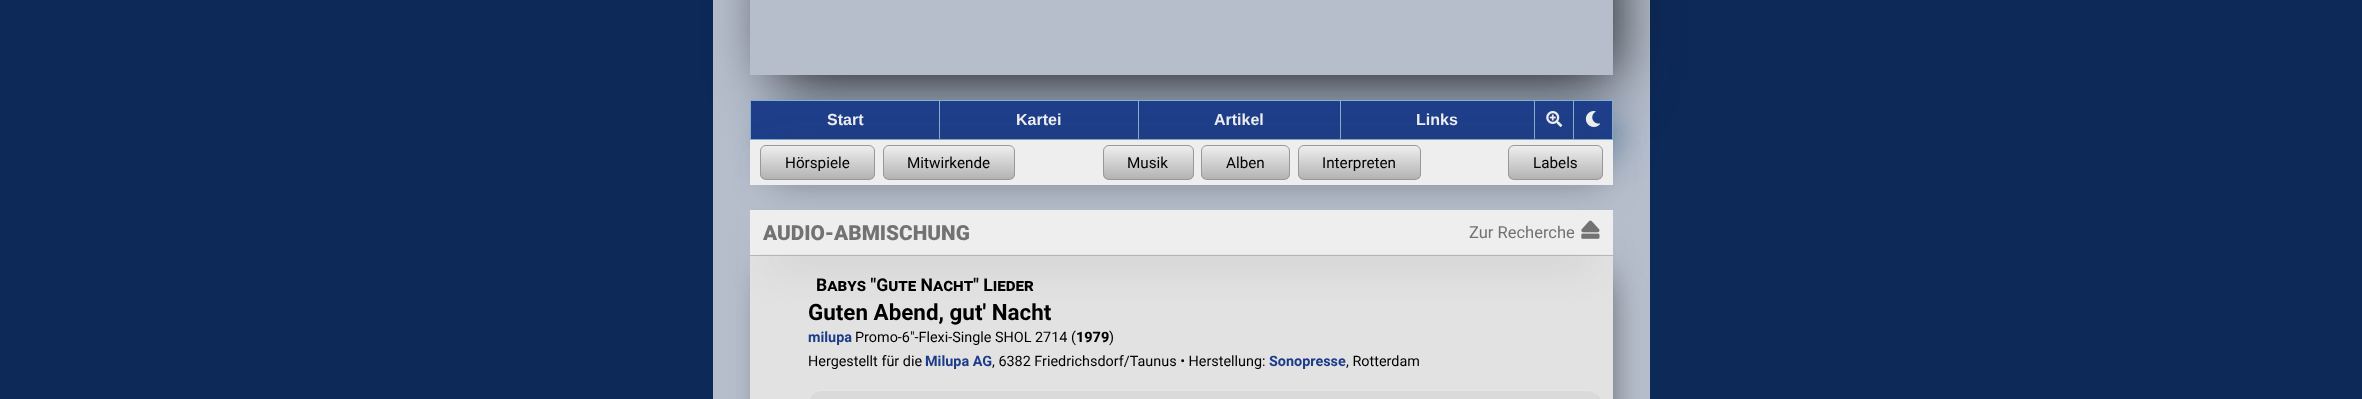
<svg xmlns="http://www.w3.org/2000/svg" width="2362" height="399">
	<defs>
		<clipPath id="clip1"><path d="M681 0H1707V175H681ZM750-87H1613V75H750Z" clip-rule="evenodd" /></clipPath>
		<clipPath id="clip2"><rect x="760" y="145" width="115" height="35" rx="6" /></clipPath>
		<linearGradient id="g1" gradientUnits="userSpaceOnUse" x1="818" y1="146" x2="818" y2="179"><stop offset="0" stop-color="#EEEEEE" /><stop offset="1" stop-color="#B3B3B3" /></linearGradient>
		<clipPath id="clip3"><rect x="883" y="145" width="132" height="35" rx="6" /></clipPath>
		<linearGradient id="g2" gradientUnits="userSpaceOnUse" x1="949" y1="146" x2="949" y2="179"><stop offset="0" stop-color="#EEEEEE" /><stop offset="1" stop-color="#B3B3B3" /></linearGradient>
		<clipPath id="clip4"><rect x="1103" y="145" width="91" height="35" rx="6" /></clipPath>
		<linearGradient id="g3" gradientUnits="userSpaceOnUse" x1="1148" y1="146" x2="1148" y2="179"><stop offset="0" stop-color="#EEEEEE" /><stop offset="1" stop-color="#B3B3B3" /></linearGradient>
		<clipPath id="clip5"><rect x="1201" y="145" width="89" height="35" rx="6" /></clipPath>
		<linearGradient id="g4" gradientUnits="userSpaceOnUse" x1="1246" y1="146" x2="1246" y2="179"><stop offset="0" stop-color="#EEEEEE" /><stop offset="1" stop-color="#B3B3B3" /></linearGradient>
		<clipPath id="clip6"><rect x="1298" y="145" width="123" height="35" rx="6" /></clipPath>
		<linearGradient id="g5" gradientUnits="userSpaceOnUse" x1="1359" y1="146" x2="1359" y2="179"><stop offset="0" stop-color="#EEEEEE" /><stop offset="1" stop-color="#B3B3B3" /></linearGradient>
		<clipPath id="clip7"><rect x="1508" y="145" width="95" height="35" rx="6" /></clipPath>
		<linearGradient id="g6" gradientUnits="userSpaceOnUse" x1="1555" y1="146" x2="1555" y2="179"><stop offset="0" stop-color="#EEEEEE" /><stop offset="1" stop-color="#B3B3B3" /></linearGradient>
	</defs>
	<rect width="100%" height="100%" fill="#0D2958" />
	<rect x="713" y="0" width="937" height="399" fill="#B6BECC" />
	<g clip-path="url(#clip1)">
		<rect x="775" y="-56" width="838" height="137" fill="#0E1115" filter="blur(31px)" />
	</g>
	<rect x="771" y="124" width="845" height="22" fill="#063969" filter="blur(19px)" />
	<rect x="750.5" y="100.5" width="862" height="39" fill="#1E3E8A" stroke="#87AFCC" />
	<rect x="939" y="101" width="1" height="38" fill="#87AFCC" />
	<text x="827" y="125" font-family="Arimo" font-size="16" font-weight="700" fill="#EEEEEE">Start</text>
	<rect x="1138" y="101" width="1" height="38" fill="#87AFCC" />
	<text x="1016" y="125" font-family="Arimo" font-size="16" font-weight="700" fill="#EEEEEE">Kartei</text>
	<rect x="1340" y="101" width="1" height="38" fill="#87AFCC" />
	<text x="1214" y="125" font-family="Arimo" font-size="16" font-weight="700" fill="#EEEEEE">Artikel</text>
	<rect x="1534" y="101" width="1" height="38" fill="#87AFCC" />
	<text x="1416" y="125" font-family="Arimo" font-size="16" font-weight="700" fill="#EEEEEE">Links</text>
	<rect x="1573" y="101" width="1" height="38" fill="#87AFCC" />
	<image x="1546" y="111" width="17" height="16" href="assets/img1.png" />
	<image x="1585" y="111" width="16" height="16" href="assets/img2.png" />
	<rect x="773" y="163" width="830" height="12" fill="#353535" filter="blur(19px)" />
	<rect x="750" y="140" width="863" height="45" fill="#EEEEEE" />
	<g clip-path="url(#clip2)">
		<rect x="760" y="146" width="115" height="33" fill="url(#g1)" />
	</g>
	<rect x="760.5" y="145.5" width="114" height="34" rx="5.5" fill="none" stroke="#989898" />
	<text x="785" y="168" font-family="Roboto" font-size="15.25" fill="#000000">Hörspiele</text>
	<g clip-path="url(#clip3)">
		<rect x="883" y="146" width="132" height="33" fill="url(#g2)" />
	</g>
	<rect x="883.5" y="145.5" width="131" height="34" rx="5.5" fill="none" stroke="#989898" />
	<text x="907" y="168" font-family="Roboto" font-size="15.25" fill="#000000">Mitwirkende</text>
	<g clip-path="url(#clip4)">
		<rect x="1103" y="146" width="91" height="33" fill="url(#g3)" />
	</g>
	<rect x="1103.5" y="145.5" width="90" height="34" rx="5.5" fill="none" stroke="#989898" />
	<text x="1127" y="168" font-family="Roboto" font-size="15.25" fill="#000000">Musik</text>
	<g clip-path="url(#clip5)">
		<rect x="1201" y="146" width="89" height="33" fill="url(#g4)" />
	</g>
	<rect x="1201.5" y="145.5" width="88" height="34" rx="5.5" fill="none" stroke="#989898" />
	<text x="1226" y="168" font-family="Roboto" font-size="15.25" fill="#000000">Alben</text>
	<g clip-path="url(#clip6)">
		<rect x="1298" y="146" width="123" height="33" fill="url(#g5)" />
	</g>
	<rect x="1298.5" y="145.5" width="122" height="34" rx="5.5" fill="none" stroke="#989898" />
	<text x="1322" y="168" font-family="Roboto" font-size="15.25" fill="#000000">Interpreten</text>
	<g clip-path="url(#clip7)">
		<rect x="1508" y="146" width="95" height="33" fill="url(#g6)" />
	</g>
	<rect x="1508.5" y="145.5" width="94" height="34" rx="5.5" fill="none" stroke="#989898" />
	<text x="1533" y="168" font-family="Roboto" font-size="15.25" fill="#000000">Labels</text>
	<rect x="773" y="276" width="830" height="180" fill="#353535" filter="blur(19px)" />
	<rect x="750" y="254" width="863" height="1" fill="#EEEEEE" />
	<rect x="750" y="256" width="863" height="143" fill="#E2E2E2" />
	<rect x="750" y="255" width="863" height="1" fill="#B7B7B7" />
	<rect x="768" y="253" width="827" height="8" fill="#B1B1B1" filter="blur(19px)" />
	<rect x="750" y="210" width="863" height="44" fill="#EEEEEE" />
	<text x="763" y="240" font-family="Roboto" font-size="20.75" font-weight="900" fill="#727272">AUDIO-ABMISCHUNG</text>
	<text x="1469" y="238" font-family="Roboto" font-size="16.5" fill="#727272">Zur Recherche</text>
	<image x="1581" y="220" width="19" height="19" href="assets/img3.png" />
	<text x="816" y="291" font-family="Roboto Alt" font-size="17.6" font-weight="700" fill="#000000">Babys "Gute Nacht" Lieder</text>
	<text x="808" y="320" font-family="Roboto" font-size="22.4" font-weight="700" fill="#000000">Guten Abend, gut' Nacht</text>
	<text x="808" y="342" font-family="Roboto" font-size="14.4" font-weight="700" fill="#1C3C8A">milupa</text>
	<text x="855" y="342" font-family="Roboto" font-size="14.4" fill="#000000">Promo-6"-Flexi-Single SHOL 2714 (</text>
	<text x="1076" y="342" font-family="Roboto" font-size="14.4" font-weight="800" fill="#000000">1979</text>
	<g font-family="Roboto" font-size="14.4" fill="#000000">
		<text x="1109" y="342">)</text>
		<text x="808" y="366">Hergestellt für die</text>
	</g>
	<text x="925" y="366" font-family="Roboto" font-size="14.4" font-weight="700" fill="#1C3C8A">Milupa AG</text>
	<text x="992" y="366" font-family="Roboto" font-size="14.4" fill="#000000">, 6382 Friedrichsdorf/Taunus • Herstellung:</text>
	<text x="1269" y="366" font-family="Roboto" font-size="14.4" font-weight="700" fill="#1C3C8A">Sonopresse</text>
	<text x="1346" y="366" font-family="Roboto" font-size="14.4" fill="#000000">, Rotterdam</text>
	<path d="M820 391H1588C1594 391 1599 396 1599 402V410H809V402C809 396 814 391 820 391Z" fill="#DADADA" />
	<path d="M820 390H1588C1591 390 1594 392 1596 394C1594 392 1591 391 1588 391H820C817 391 814 392 812 395L811 394C813 392 816 390 820 390Z" fill="#E6E6E6" />
	<path d="M1599 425H1600V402C1600 399 1598.5 396 1596 394C1598 396 1599 399 1599 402Z" fill="#C7C7C7" />
	<path d="M808 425H809V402C809 399 810 396.5 812 394.5L811.5 394C809 396 808 399 808 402Z" fill="#E6E6E6" />
</svg>
